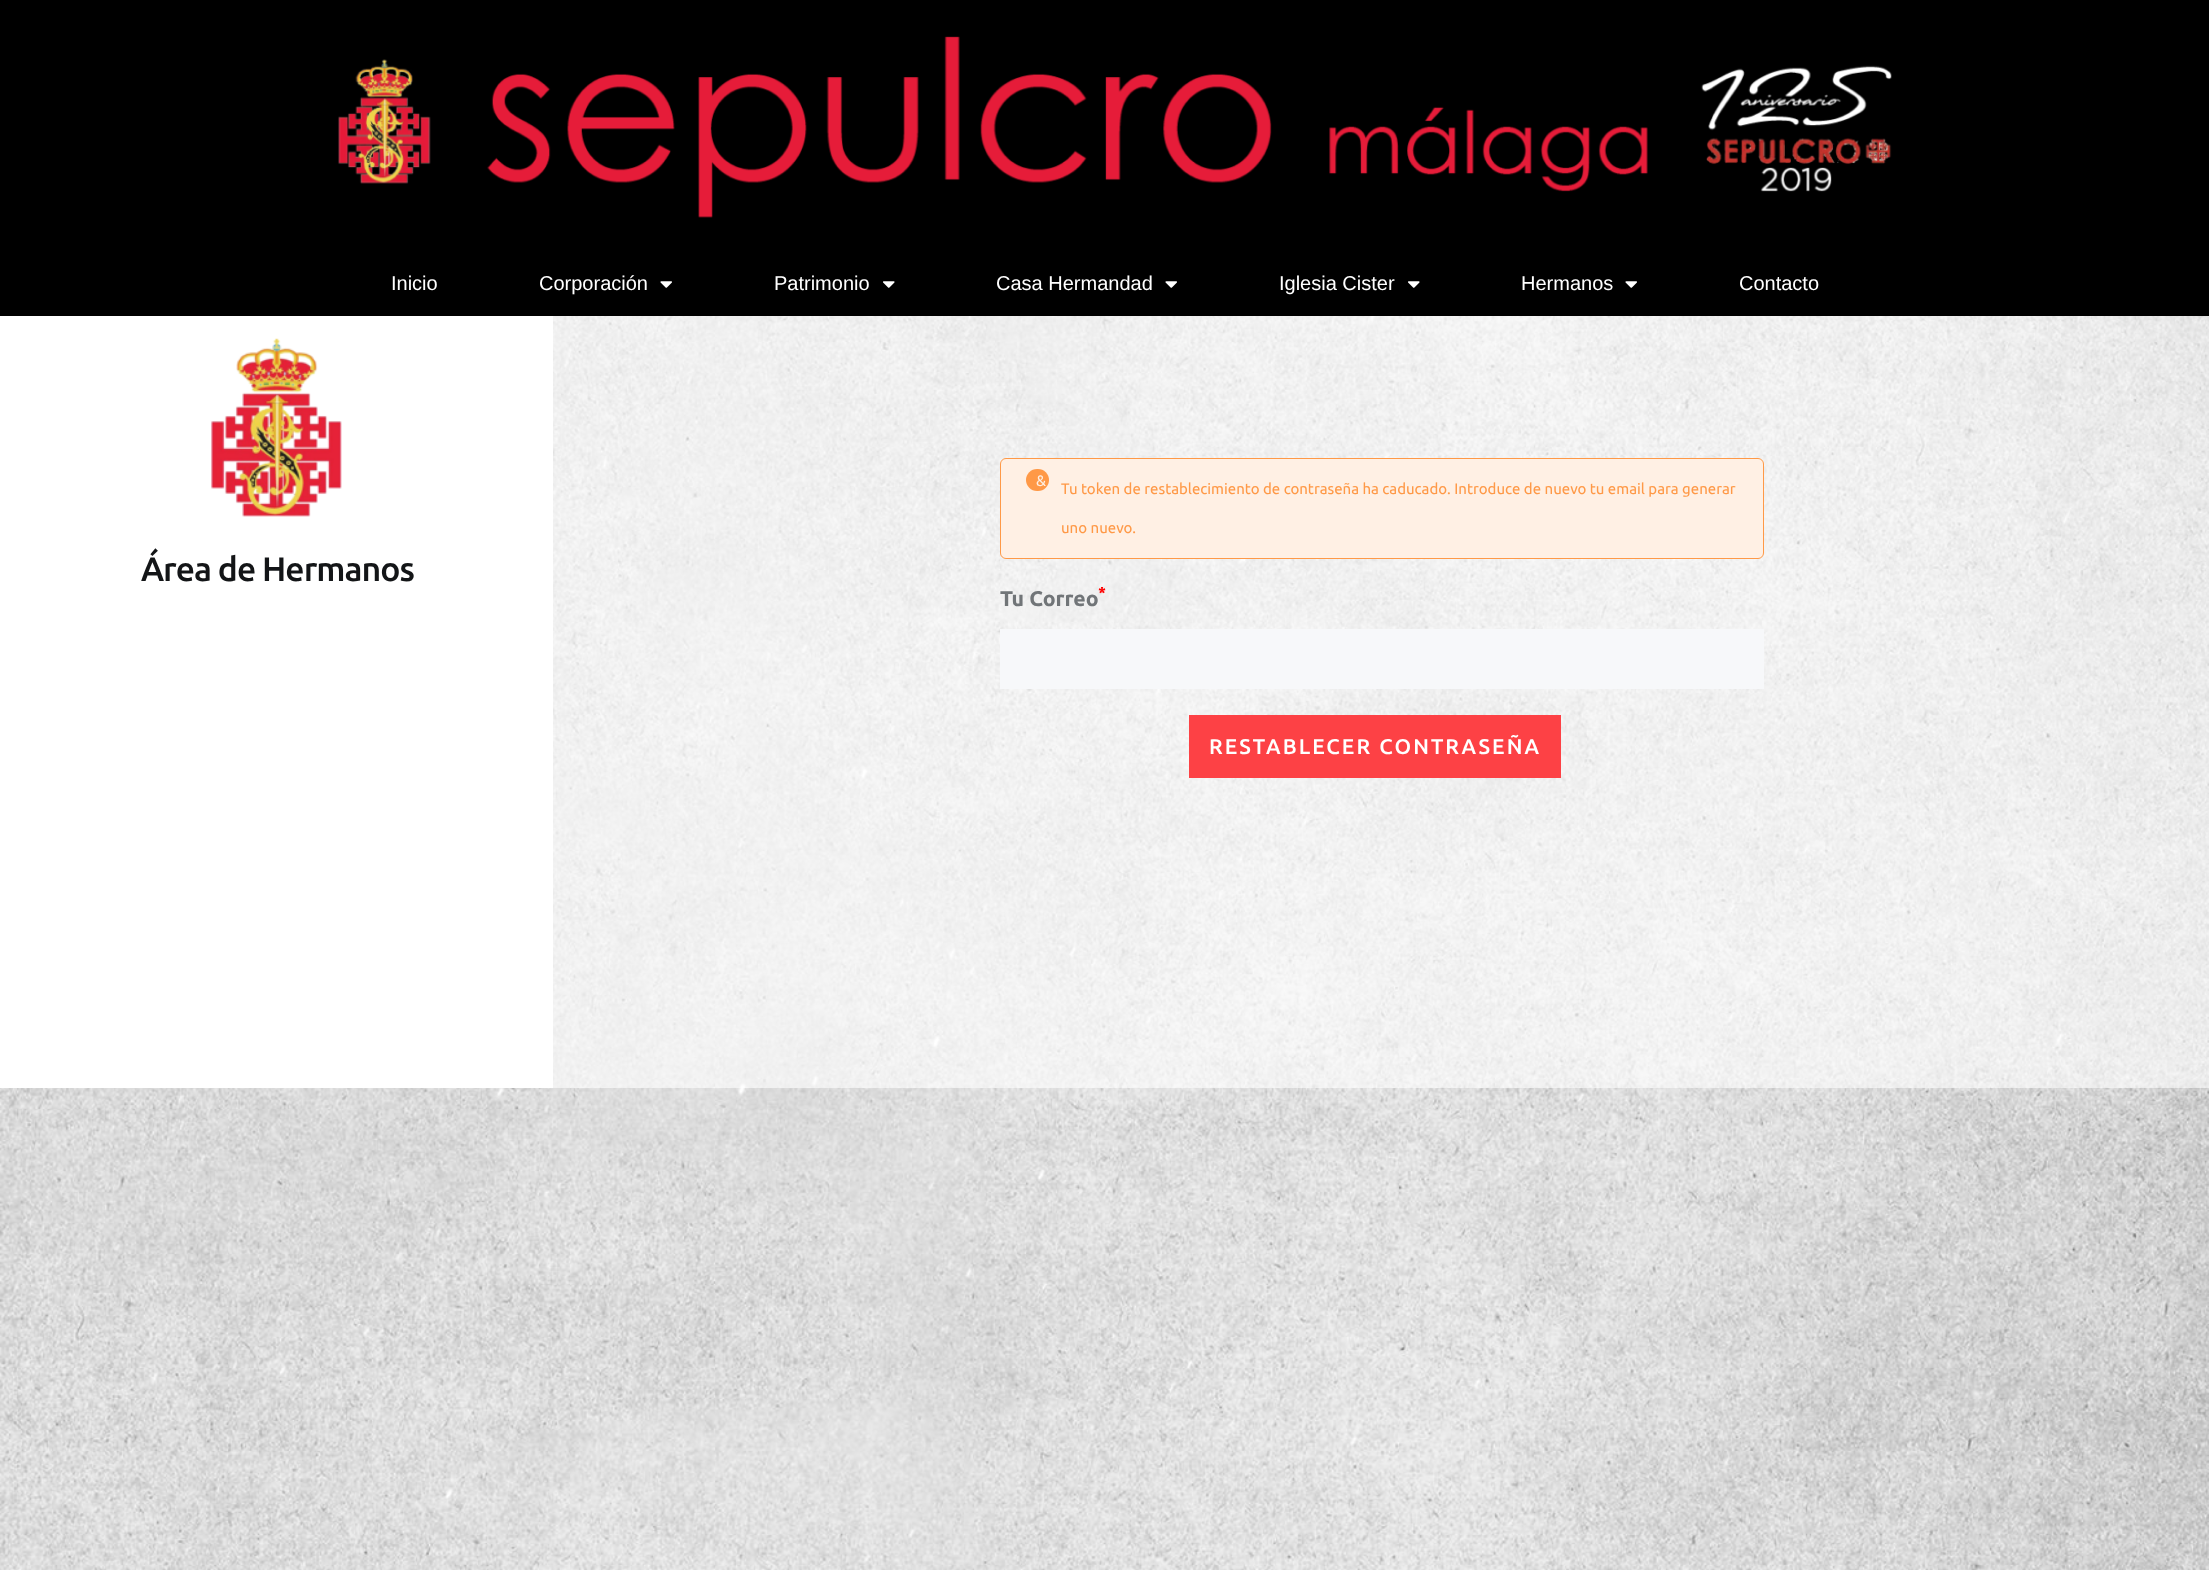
<svg xmlns="http://www.w3.org/2000/svg" width="2209" height="1570">
	<rect width="100%" height="100%" fill="#FFFFFF" />
	<image x="0" y="316" width="2209" height="1254" href="assets/img1.png" />
	<rect x="0" y="0" width="2209" height="316" fill="#000000" />
	<image x="338" y="36" width="1554" height="182" href="assets/img2.png" />
	<g font-family="Liberation Sans" font-size="20" fill="#FFFFFF">
		<text x="391" y="290">Inicio</text>
		<text x="539" y="290">Corporación</text>
	</g>
	<image x="660" y="281" width="12" height="7" href="assets/img3.png" />
	<text x="774" y="290" font-family="Liberation Sans" font-size="20" fill="#FFFFFF">Patrimonio</text>
	<image x="883" y="281" width="12" height="7" href="assets/img4.png" />
	<text x="996" y="290" font-family="Liberation Sans" font-size="20" fill="#FFFFFF">Casa Hermandad</text>
	<image x="1165" y="281" width="12" height="7" href="assets/img3.png" />
	<text x="1279" y="290" font-family="Liberation Sans" font-size="20" fill="#FFFFFF">Iglesia Cister</text>
	<image x="1408" y="281" width="12" height="7" href="assets/img4.png" />
	<text x="1521" y="290" font-family="Liberation Sans" font-size="20" fill="#FFFFFF">Hermanos</text>
	<image x="1625" y="281" width="12" height="7" href="assets/img3.png" />
	<text x="1739" y="290" font-family="Liberation Sans" font-size="20" fill="#FFFFFF">Contacto</text>
	<rect x="553" y="316" width="1656" height="772" fill="#FFFFFF" fill-opacity="0.61" />
	<rect x="0" y="316" width="553" height="772" fill="#FFFFFF" />
	<image x="211" y="338" width="131" height="179" href="assets/img5.png" />
	<text x="141" y="581" font-family="Ubuntu" font-size="33.75" font-weight="500" letter-spacing="-1" fill="#131517">Área de Hermanos</text>
	<rect x="1000.5" y="458.5" width="763" height="100" rx="5.5" fill="#FFF0E4" stroke="#FF9947" />
	<rect x="1026" y="469" width="23" height="22" rx="11" fill="#FF9947" />
	<text x="1036" y="486" font-family="Ubuntu" font-size="15" fill="#FFF0E4">&amp;</text>
	<g font-family="Ubuntu" font-size="15" fill="#FF9947">
		<text x="1061" y="494">Tu token de restablecimiento de contraseña ha caducado. Introduce de nuevo tu email para generar</text>
		<text x="1061" y="533">uno nuevo.</text>
	</g>
	<text x="1000" y="606" font-family="Ubuntu" font-size="21.25" font-weight="700" fill="#717578">Tu Correo</text>
	<text x="1098" y="598" font-family="Ubuntu" font-size="16" font-weight="700" fill="#FF0000">*</text>
	<rect x="1000" y="629" width="764" height="60" fill="#F7F8FA" />
	<rect x="1189" y="715" width="372" height="63" fill="#FD4145" />
	<text x="1209" y="754" font-family="Ubuntu" font-size="21.25" font-weight="500" letter-spacing="2.1" fill="#FFFFFF">RESTABLECER CONTRASEÑA</text>
</svg>
